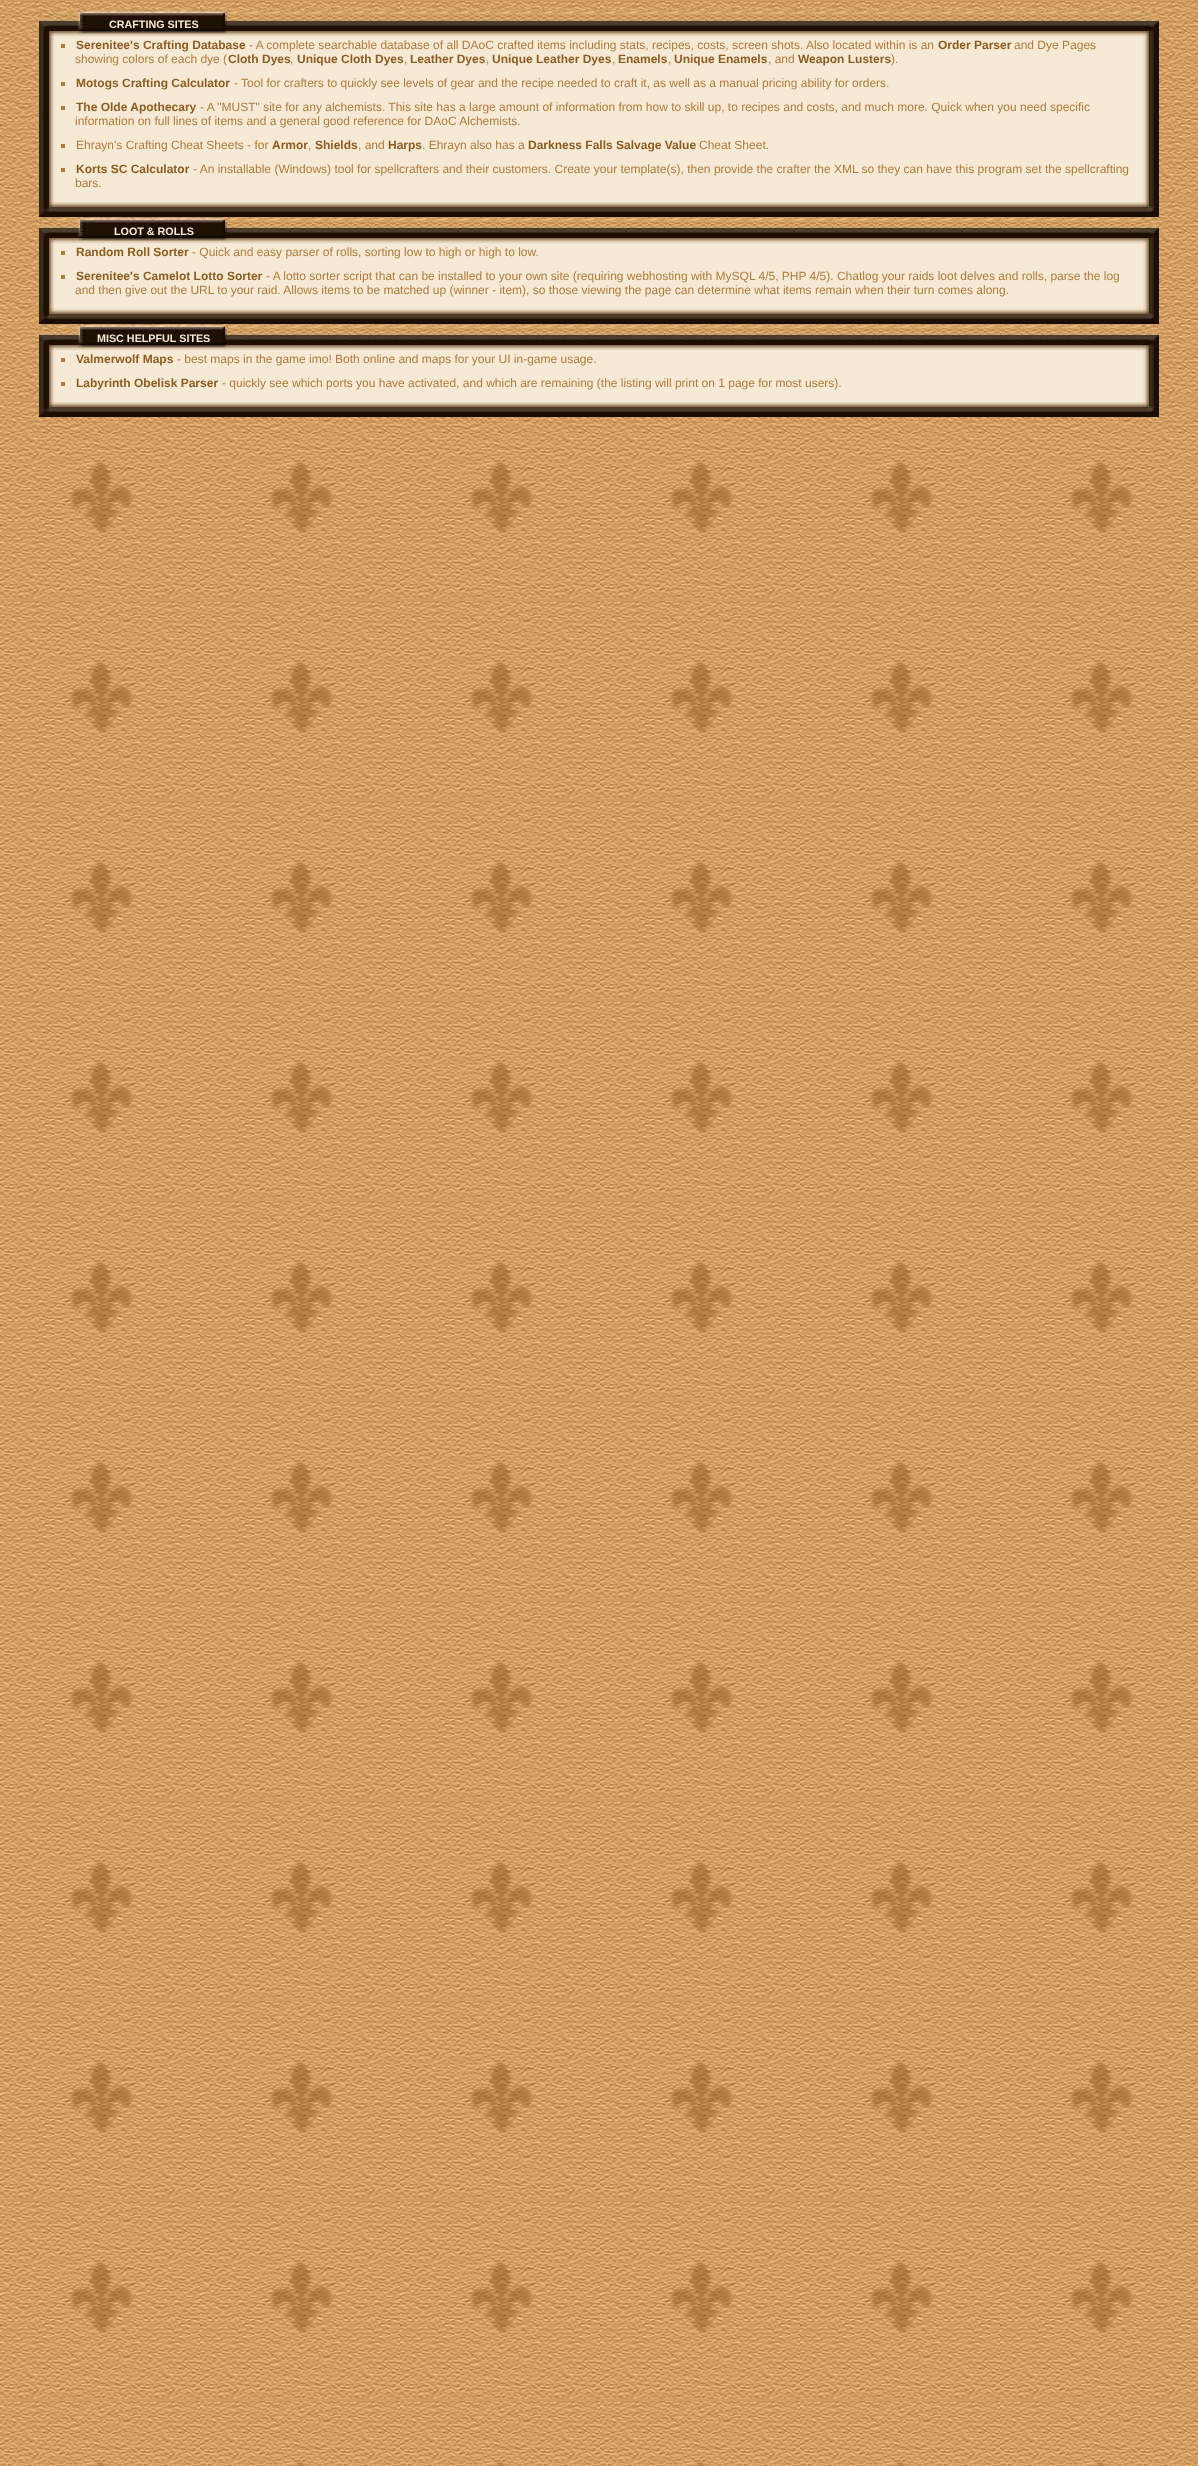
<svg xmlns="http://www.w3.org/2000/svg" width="1198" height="2466">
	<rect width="100%" height="100%" fill="#FFFFFF" />
	<image x="0" y="0" width="1198" height="2466" href="assets/img1.png" />
	<image x="39" y="10" width="18" height="28" href="assets/img2.png" />
	<image x="57" y="10" width="21" height="28" href="assets/img3.png" />
	<image x="78" y="10" width="150" height="28" href="assets/img4.png" />
	<text x="109" y="28" font-family="Liberation Sans" font-size="10.75" font-weight="700" fill="#F6E9D6">CRAFTING SITES</text>
	<image x="228" y="10" width="914" height="28" href="assets/img5.png" />
	<image x="1142" y="10" width="17" height="28" href="assets/img6.png" />
	<image x="39" y="38" width="18" height="162" href="assets/img7.png" />
	<rect x="57" y="38" width="1085" height="162" fill="#F6E9D6" />
	<rect x="61" y="44" width="4" height="4" fill="#B17B3B" />
	<text x="76" y="49" font-family="Liberation Sans" font-size="12" font-weight="700" fill="#8E5C20">Serenitee's Crafting Database</text>
	<text x="249" y="49" font-family="Liberation Sans" font-size="12" fill="#B17B3B">- A complete searchable database of all DAoC crafted items including stats, recipes, costs, screen shots. Also located within is an</text>
	<text x="938" y="49" font-family="Liberation Sans" font-size="12" font-weight="700" fill="#8E5C20">Order Parser</text>
	<g font-family="Liberation Sans" font-size="12" fill="#B17B3B">
		<text x="1014" y="49">and Dye Pages</text>
		<text x="75" y="63">showing colors of each dye (</text>
	</g>
	<text x="228" y="63" font-family="Liberation Sans" font-size="12" font-weight="700" fill="#8E5C20">Cloth Dyes</text>
	<text x="290" y="63" font-family="Liberation Sans" font-size="12" fill="#B17B3B">,</text>
	<text x="297" y="63" font-family="Liberation Sans" font-size="12" font-weight="700" fill="#8E5C20">Unique Cloth Dyes</text>
	<text x="404" y="63" font-family="Liberation Sans" font-size="12" fill="#B17B3B">,</text>
	<text x="410" y="63" font-family="Liberation Sans" font-size="12" font-weight="700" fill="#8E5C20">Leather Dyes</text>
	<text x="486" y="63" font-family="Liberation Sans" font-size="12" fill="#B17B3B">,</text>
	<text x="492" y="63" font-family="Liberation Sans" font-size="12" font-weight="700" fill="#8E5C20">Unique Leather Dyes</text>
	<text x="612" y="63" font-family="Liberation Sans" font-size="12" fill="#B17B3B">,</text>
	<text x="618" y="63" font-family="Liberation Sans" font-size="12" font-weight="700" fill="#8E5C20">Enamels</text>
	<text x="668" y="63" font-family="Liberation Sans" font-size="12" fill="#B17B3B">,</text>
	<text x="674" y="63" font-family="Liberation Sans" font-size="12" font-weight="700" fill="#8E5C20">Unique Enamels</text>
	<text x="768" y="63" font-family="Liberation Sans" font-size="12" fill="#B17B3B">, and</text>
	<text x="798" y="63" font-family="Liberation Sans" font-size="12" font-weight="700" fill="#8E5C20">Weapon Lusters</text>
	<text x="891" y="63" font-family="Liberation Sans" font-size="12" fill="#B17B3B">).</text>
	<rect x="61" y="82" width="4" height="4" fill="#B17B3B" />
	<text x="76" y="87" font-family="Liberation Sans" font-size="12" font-weight="700" fill="#8E5C20">Motogs Crafting Calculator</text>
	<text x="234" y="87" font-family="Liberation Sans" font-size="12" fill="#B17B3B">- Tool for crafters to quickly see levels of gear and the recipe needed to craft it, as well as a manual pricing ability for orders.</text>
	<rect x="61" y="106" width="4" height="4" fill="#B17B3B" />
	<text x="76" y="111" font-family="Liberation Sans" font-size="12" font-weight="700" fill="#8E5C20">The Olde Apothecary</text>
	<g font-family="Liberation Sans" font-size="12" fill="#B17B3B">
		<text x="200" y="111">- A "MUST" site for any alchemists. This site has a large amount of information from how to skill up, to recipes and costs, and much more. Quick when you need specific</text>
		<text x="75" y="125">information on full lines of items and a general good reference for DAoC Alchemists.</text>
	</g>
	<rect x="61" y="144" width="4" height="4" fill="#B17B3B" />
	<text x="76" y="149" font-family="Liberation Sans" font-size="12" fill="#B17B3B">Ehrayn's Crafting Cheat Sheets - for</text>
	<g font-family="Liberation Sans" font-size="12" font-weight="700" fill="#8E5C20">
		<text x="272" y="149">Armor</text>
		<text x="315" y="149">Shields</text>
	</g>
	<text x="358" y="149" font-family="Liberation Sans" font-size="12" fill="#B17B3B">, and</text>
	<text x="388" y="149" font-family="Liberation Sans" font-size="12" font-weight="700" fill="#8E5C20">Harps</text>
	<text x="422" y="149" font-family="Liberation Sans" font-size="12" fill="#B17B3B">. Ehrayn also has a</text>
	<text x="528" y="149" font-family="Liberation Sans" font-size="12" font-weight="700" fill="#8E5C20">Darkness Falls Salvage Value</text>
	<g font-family="Liberation Sans" font-size="12" fill="#B17B3B">
		<text x="699" y="149">Cheat Sheet.</text>
		<text x="308" y="149">,</text>
	</g>
	<rect x="61" y="168" width="4" height="4" fill="#B17B3B" />
	<text x="76" y="173" font-family="Liberation Sans" font-size="12" font-weight="700" fill="#8E5C20">Korts SC Calculator</text>
	<g font-family="Liberation Sans" font-size="12" fill="#B17B3B">
		<text x="193" y="173">- An installable (Windows) tool for spellcrafters and their customers. Create your template(s), then provide the crafter the XML so they can have this program set the spellcrafting</text>
		<text x="75" y="187">bars.</text>
	</g>
	<image x="1142" y="38" width="17" height="162" href="assets/img8.png" />
	<image x="39" y="200" width="18" height="17" href="assets/img9.png" />
	<image x="57" y="200" width="1085" height="17" href="assets/img10.png" />
	<image x="1142" y="200" width="17" height="17" href="assets/img11.png" />
	<image x="39" y="217" width="18" height="28" href="assets/img2.png" />
	<image x="57" y="217" width="21" height="28" href="assets/img3.png" />
	<image x="78" y="217" width="150" height="28" href="assets/img4.png" />
	<text x="114" y="235" font-family="Liberation Sans" font-size="10.75" font-weight="700" fill="#F6E9D6">LOOT &amp; ROLLS</text>
	<image x="228" y="217" width="914" height="28" href="assets/img5.png" />
	<image x="1142" y="217" width="17" height="28" href="assets/img6.png" />
	<image x="39" y="245" width="18" height="62" href="assets/img12.png" />
	<rect x="57" y="245" width="1085" height="62" fill="#F6E9D6" />
	<rect x="61" y="251" width="4" height="4" fill="#B17B3B" />
	<text x="76" y="256" font-family="Liberation Sans" font-size="12" font-weight="700" fill="#8E5C20">Random Roll Sorter</text>
	<text x="192" y="256" font-family="Liberation Sans" font-size="12" fill="#B17B3B">- Quick and easy parser of rolls, sorting low to high or high to low.</text>
	<rect x="61" y="275" width="4" height="4" fill="#B17B3B" />
	<text x="76" y="280" font-family="Liberation Sans" font-size="12" font-weight="700" fill="#8E5C20">Serenitee's Camelot Lotto Sorter</text>
	<g font-family="Liberation Sans" font-size="12" fill="#B17B3B">
		<text x="266" y="280">- A lotto sorter script that can be installed to your own site (requiring webhosting with MySQL 4/5, PHP 4/5). Chatlog your raids loot delves and rolls, parse the log</text>
		<text x="75" y="294">and then give out the URL to your raid. Allows items to be matched up (winner - item), so those viewing the page can determine what items remain when their turn comes along.</text>
	</g>
	<image x="1142" y="245" width="17" height="62" href="assets/img13.png" />
	<image x="39" y="307" width="18" height="17" href="assets/img9.png" />
	<image x="57" y="307" width="1085" height="17" href="assets/img10.png" />
	<image x="1142" y="307" width="17" height="17" href="assets/img11.png" />
	<image x="39" y="324" width="18" height="28" href="assets/img2.png" />
	<image x="57" y="324" width="21" height="28" href="assets/img3.png" />
	<image x="78" y="324" width="150" height="28" href="assets/img4.png" />
	<text x="97" y="342" font-family="Liberation Sans" font-size="10.75" font-weight="700" fill="#F6E9D6">MISC HELPFUL SITES</text>
	<image x="228" y="324" width="914" height="28" href="assets/img5.png" />
	<image x="1142" y="324" width="17" height="28" href="assets/img6.png" />
	<image x="39" y="352" width="18" height="48" href="assets/img14.png" />
	<rect x="57" y="352" width="1085" height="48" fill="#F6E9D6" />
	<rect x="61" y="358" width="4" height="4" fill="#B17B3B" />
	<text x="76" y="363" font-family="Liberation Sans" font-size="12" font-weight="700" fill="#8E5C20">Valmerwolf Maps</text>
	<text x="177" y="363" font-family="Liberation Sans" font-size="12" fill="#B17B3B">- best maps in the game imo! Both online and maps for your UI in-game usage.</text>
	<rect x="61" y="382" width="4" height="4" fill="#B17B3B" />
	<text x="76" y="387" font-family="Liberation Sans" font-size="12" font-weight="700" fill="#8E5C20">Labyrinth Obelisk Parser</text>
	<text x="222" y="387" font-family="Liberation Sans" font-size="12" fill="#B17B3B">- quickly see which ports you have activated, and which are remaining (the listing will print on 1 page for most users).</text>
	<image x="1142" y="352" width="17" height="48" href="assets/img15.png" />
	<image x="39" y="400" width="18" height="17" href="assets/img9.png" />
	<image x="57" y="400" width="1085" height="17" href="assets/img10.png" />
	<image x="1142" y="400" width="17" height="17" href="assets/img11.png" />
</svg>
